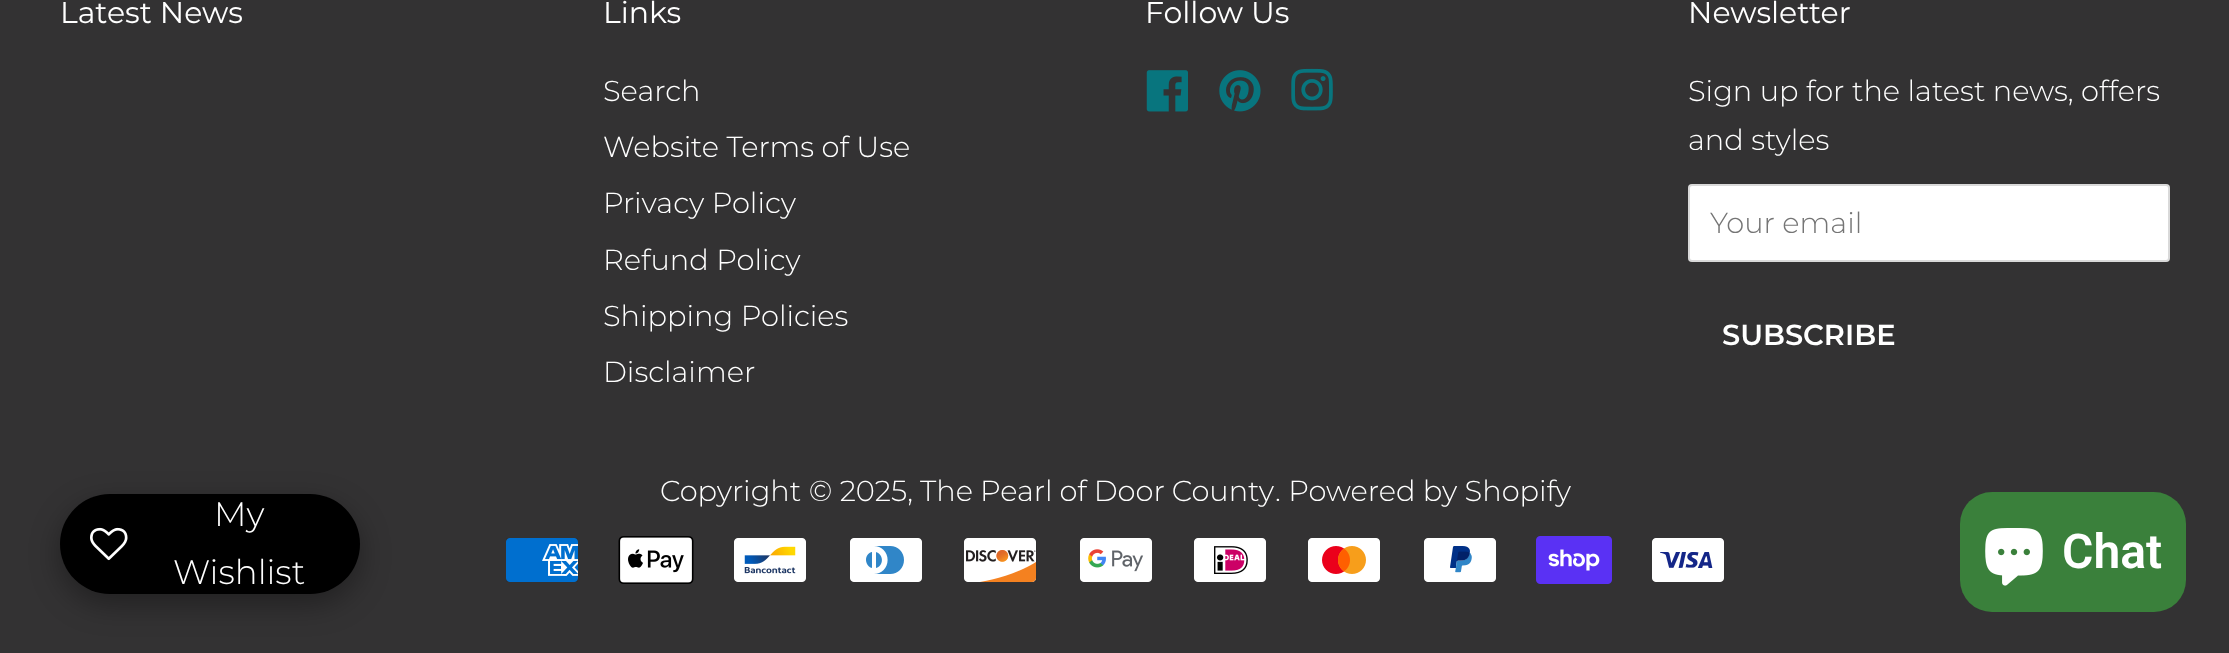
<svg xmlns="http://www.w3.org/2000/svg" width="2229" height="653">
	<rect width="100%" height="100%" fill="#333233" />
	<g font-family="Montserrat" font-size="30" fill="#FFFFFF">
		<text x="60" y="23">Latest News</text>
		<text x="603" y="23">Links</text>
	</g>
	<g font-family="Montserrat" font-size="28.9" font-weight="300" fill="#FFFFFF">
		<text x="603" y="101">Search</text>
		<text x="603" y="157">Website Terms of Use</text>
		<text x="603" y="213">Privacy Policy</text>
		<text x="603" y="270">Refund Policy</text>
		<text x="603" y="326">Shipping Policies</text>
		<text x="603" y="382">Disclaimer</text>
	</g>
	<text x="1145" y="23" font-family="Montserrat" font-size="30" fill="#FFFFFF">Follow Us</text>
	<image x="1146" y="70" width="42" height="42" href="assets/img1.png" />
	<image x="1219" y="70" width="42" height="42" href="assets/img2.png" />
	<image x="1291" y="68" width="42" height="43" href="assets/img3.png" />
	<text x="1688" y="23" font-family="Montserrat" font-size="30" fill="#FFFFFF">Newsletter</text>
	<g font-family="Montserrat" font-size="28.9" font-weight="300" fill="#FFFFFF">
		<text x="1688" y="101">Sign up for the latest news, offers</text>
		<text x="1688" y="150">and styles</text>
	</g>
	<rect x="1688" y="184" width="482" height="78" rx="4" fill="#FFFFFF" />
	<rect x="1689" y="185" width="480" height="76" rx="3" fill="none" stroke="#000000" stroke-opacity="0.15" stroke-width="2" />
	<text x="1710" y="233" font-family="Montserrat" font-size="28.9" font-weight="300" fill="#757575">Your email</text>
	<text x="1722" y="345" font-family="Montserrat" font-size="28.9" font-weight="600" fill="#FFFFFF">SUBSCRIBE</text>
	<g font-family="Montserrat" font-size="28.9" font-weight="300" fill="#FFFFFF">
		<text x="660" y="501">Copyright © 2025,</text>
		<text x="920" y="501" word-spacing="-0.5">The Pearl of Door County</text>
		<text x="1275" y="501">. Powered by Shopify</text>
	</g>
	<image x="506" y="538" width="72" height="44" href="assets/img4.png" />
	<image x="618" y="536" width="76" height="48" href="assets/img5.png" />
	<image x="734" y="538" width="72" height="44" href="assets/img6.png" />
	<image x="850" y="538" width="72" height="44" href="assets/img7.png" />
	<image x="964" y="538" width="73" height="44" href="assets/img8.png" />
	<image x="1080" y="538" width="72" height="44" href="assets/img9.png" />
	<image x="1194" y="538" width="72" height="44" href="assets/img10.png" />
	<image x="1308" y="538" width="72" height="44" href="assets/img11.png" />
	<image x="1424" y="538" width="72" height="44" href="assets/img12.png" />
	<image x="1536" y="536" width="76" height="48" href="assets/img13.png" />
	<image x="1652" y="538" width="72" height="44" href="assets/img14.png" />
	<rect x="60" y="504" width="300" height="100" rx="50" fill="#000000" fill-opacity="0.35" filter="blur(15px)" />
	<rect x="60" y="494" width="300" height="100" rx="50" fill="#000000" />
	<image x="90" y="527" width="38" height="34" href="assets/img15.png" />
	<g font-family="Montserrat" font-size="34" font-weight="300" fill="#FFFFFF">
		<text x="214" y="526">My</text>
		<text x="173" y="584">Wishlist</text>
	</g>
	<rect x="1960" y="492" width="226" height="120" rx="32" fill="#3A803B" />
	<image x="1985" y="528" width="58" height="58" href="assets/img16.png" />
	<text x="2062" y="568" font-family="Roboto" font-size="48" font-weight="600" fill="#FFFFFF">Chat</text>
</svg>
